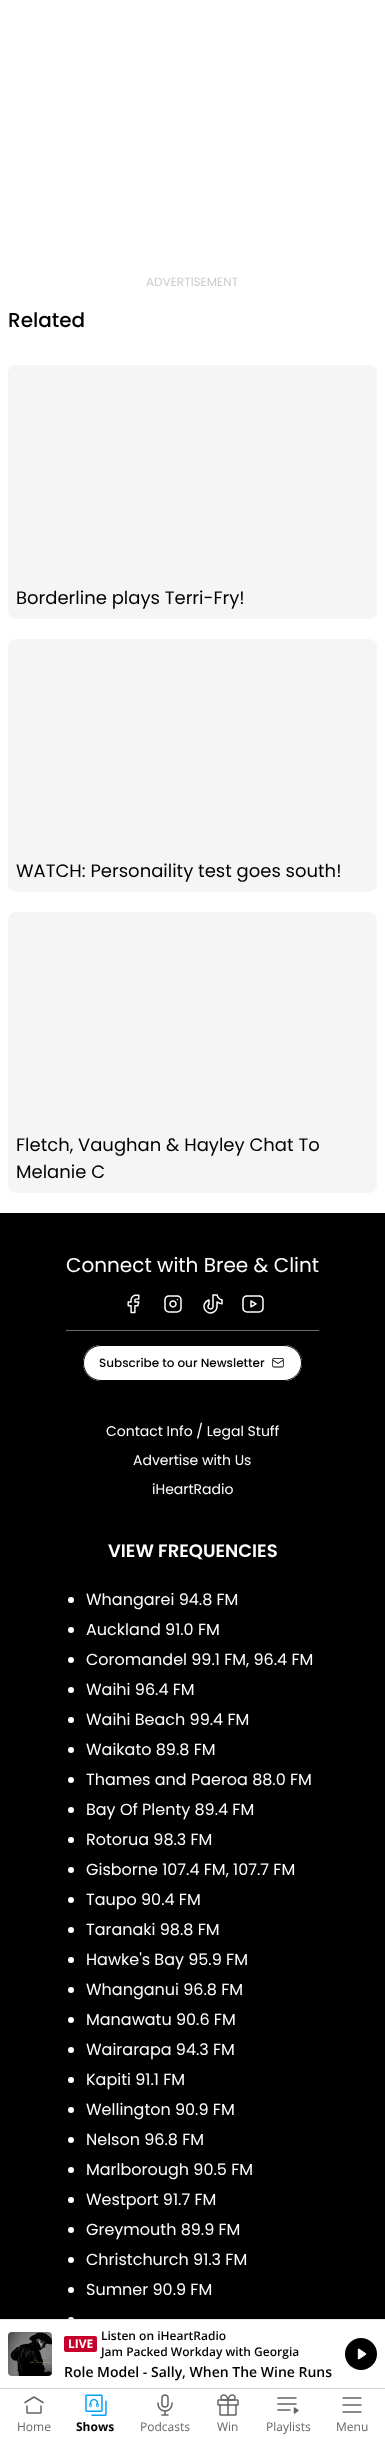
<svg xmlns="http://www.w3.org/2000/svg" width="385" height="2439">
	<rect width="100%" height="100%" fill="#FFFFFF" />
	<text x="146" y="286" font-family="Poppins" font-size="12" fill="#CCCCCC">ADVERTISEMENT</text>
	<text x="8" y="327" font-family="Poppins" font-size="20" font-weight="500" fill="#000000">Related</text>
	<rect x="8" y="365" width="369" height="254" rx="8" fill="#F5F5F5" />
	<text x="16" y="604" font-family="Poppins" font-size="18" fill="#000000">Borderline plays Terri-Fry!</text>
	<rect x="8" y="639" width="369" height="253" rx="8" fill="#F5F5F5" />
	<text x="16" y="877" font-family="Poppins" font-size="18" fill="#000000">WATCH: Personaility test goes south!</text>
	<rect x="8" y="912" width="369" height="281" rx="8" fill="#F5F5F5" />
	<g font-family="Poppins" font-size="18" fill="#000000">
		<text x="16" y="1151">Fletch, Vaughan &amp; Hayley Chat To</text>
		<text x="16" y="1178">Melanie C</text>
	</g>
	<rect x="0" y="1213" width="385" height="1106" fill="#000000" />
	<text x="66" y="1272" font-family="Poppins" font-size="20" fill="#FFFFFF">Connect with Bree &amp; Clint</text>
	<image x="127" y="1294" width="13" height="20" href="assets/img1.png" />
	<image x="164" y="1295" width="18" height="18" href="assets/img2.png" />
	<image x="203" y="1294" width="20" height="20" href="assets/img3.png" />
	<image x="242" y="1295" width="22" height="18" href="assets/img4.png" />
	<rect x="66" y="1330" width="253" height="1" fill="#6B6B6B" />
	<rect x="83" y="1345" width="219" height="36" rx="18" fill="#FFFFFF" />
	<image x="272" y="1358" width="12" height="10" href="assets/img5.png" />
	<rect x="83.5" y="1345.5" width="218" height="35" rx="17.5" fill="none" stroke="#000000" />
	<text x="99" y="1367" font-family="Poppins" font-size="12" font-weight="500" fill="#000000">Subscribe to our Newsletter</text>
	<g font-family="Poppins" font-size="14" fill="#FFFFFF">
		<text x="106" y="1436">Contact Info / Legal Stuff</text>
		<text x="133" y="1465">Advertise with Us</text>
		<text x="152" y="1494">iHeartRadio</text>
	</g>
	<text x="108" y="1557" font-family="Poppins" font-size="18" font-weight="600" fill="#FFFFFF">VIEW FREQUENCIES</text>
	<circle cx="71" cy="1600" r="3" fill="#FFFFFF" />
	<text x="86" y="1605" font-family="Poppins" font-size="16" fill="#FFFFFF">Whangarei 94.8 FM</text>
	<circle cx="71" cy="1630" r="3" fill="#FFFFFF" />
	<text x="86" y="1635" font-family="Poppins" font-size="16" fill="#FFFFFF">Auckland 91.0 FM</text>
	<circle cx="71" cy="1660" r="3" fill="#FFFFFF" />
	<text x="86" y="1665" font-family="Poppins" font-size="16" fill="#FFFFFF">Coromandel 99.1 FM, 96.4 FM</text>
	<circle cx="71" cy="1690" r="3" fill="#FFFFFF" />
	<text x="86" y="1695" font-family="Poppins" font-size="16" fill="#FFFFFF">Waihi 96.4 FM</text>
	<circle cx="71" cy="1720" r="3" fill="#FFFFFF" />
	<text x="86" y="1725" font-family="Poppins" font-size="16" fill="#FFFFFF">Waihi Beach 99.4 FM</text>
	<circle cx="71" cy="1750" r="3" fill="#FFFFFF" />
	<text x="86" y="1755" font-family="Poppins" font-size="16" fill="#FFFFFF">Waikato 89.8 FM</text>
	<circle cx="71" cy="1780" r="3" fill="#FFFFFF" />
	<text x="86" y="1785" font-family="Poppins" font-size="16" fill="#FFFFFF">Thames and Paeroa 88.0 FM</text>
	<circle cx="71" cy="1810" r="3" fill="#FFFFFF" />
	<text x="86" y="1815" font-family="Poppins" font-size="16" fill="#FFFFFF">Bay Of Plenty 89.4 FM</text>
	<circle cx="71" cy="1840" r="3" fill="#FFFFFF" />
	<text x="86" y="1845" font-family="Poppins" font-size="16" fill="#FFFFFF">Rotorua 98.3 FM</text>
	<circle cx="71" cy="1870" r="3" fill="#FFFFFF" />
	<text x="86" y="1875" font-family="Poppins" font-size="16" fill="#FFFFFF">Gisborne 107.4 FM, 107.7 FM</text>
	<circle cx="71" cy="1900" r="3" fill="#FFFFFF" />
	<text x="86" y="1905" font-family="Poppins" font-size="16" fill="#FFFFFF">Taupo 90.4 FM</text>
	<circle cx="71" cy="1930" r="3" fill="#FFFFFF" />
	<text x="86" y="1935" font-family="Poppins" font-size="16" fill="#FFFFFF">Taranaki 98.8 FM</text>
	<circle cx="71" cy="1960" r="3" fill="#FFFFFF" />
	<text x="86" y="1965" font-family="Poppins" font-size="16" fill="#FFFFFF">Hawke's Bay 95.9 FM</text>
	<circle cx="71" cy="1990" r="3" fill="#FFFFFF" />
	<text x="86" y="1995" font-family="Poppins" font-size="16" fill="#FFFFFF">Whanganui 96.8 FM</text>
	<circle cx="71" cy="2020" r="3" fill="#FFFFFF" />
	<text x="86" y="2025" font-family="Poppins" font-size="16" fill="#FFFFFF">Manawatu 90.6 FM</text>
	<circle cx="71" cy="2050" r="3" fill="#FFFFFF" />
	<text x="86" y="2055" font-family="Poppins" font-size="16" fill="#FFFFFF">Wairarapa 94.3 FM</text>
	<circle cx="71" cy="2080" r="3" fill="#FFFFFF" />
	<text x="86" y="2085" font-family="Poppins" font-size="16" fill="#FFFFFF">Kapiti 91.1 FM</text>
	<circle cx="71" cy="2110" r="3" fill="#FFFFFF" />
	<text x="86" y="2115" font-family="Poppins" font-size="16" fill="#FFFFFF">Wellington 90.9 FM</text>
	<circle cx="71" cy="2140" r="3" fill="#FFFFFF" />
	<text x="86" y="2145" font-family="Poppins" font-size="16" fill="#FFFFFF">Nelson 96.8 FM</text>
	<circle cx="71" cy="2170" r="3" fill="#FFFFFF" />
	<text x="86" y="2175" font-family="Poppins" font-size="16" fill="#FFFFFF">Marlborough 90.5 FM</text>
	<circle cx="71" cy="2200" r="3" fill="#FFFFFF" />
	<text x="86" y="2205" font-family="Poppins" font-size="16" fill="#FFFFFF">Westport 91.7 FM</text>
	<circle cx="71" cy="2230" r="3" fill="#FFFFFF" />
	<text x="86" y="2235" font-family="Poppins" font-size="16" fill="#FFFFFF">Greymouth 89.9 FM</text>
	<circle cx="71" cy="2260" r="3" fill="#FFFFFF" />
	<text x="86" y="2265" font-family="Poppins" font-size="16" fill="#FFFFFF">Christchurch 91.3 FM</text>
	<circle cx="71" cy="2290" r="3" fill="#FFFFFF" />
	<text x="86" y="2295" font-family="Poppins" font-size="16" fill="#FFFFFF">Sumner 90.9 FM</text>
	<circle cx="71" cy="2320" r="3" fill="#FFFFFF" />
	<rect x="0" y="2319" width="385" height="1" fill="#E5E7EB" />
	<image x="8" y="2332" width="44" height="44" href="assets/img6.png" />
	<rect x="64" y="2336" width="33" height="16" rx="2" fill="#C7002B" />
	<text x="68" y="2348" font-family="Open Sans" font-size="12" font-weight="700" fill="#FFFFFF">LIVE</text>
	<g font-family="Open Sans" font-size="12" font-weight="600" fill="#000000">
		<text x="101" y="2340">Listen on iHeartRadio</text>
		<text x="101" y="2356">Jam Packed Workday with Georgia</text>
	</g>
	<text x="64" y="2377" font-family="Open Sans" font-size="14" font-weight="600" fill="#000000">Role Model - Sally, When The Wine Runs</text>
	<circle cx="361" cy="2354" r="16" fill="#000000" />
	<image x="357" y="2348" width="10" height="12" href="assets/img7.png" />
	<rect x="0" y="2388" width="385" height="1" fill="#D1D5DB" />
	<image x="24" y="2396" width="20" height="18" href="assets/img8.png" />
	<text x="17" y="2431" font-family="Open Sans" font-size="12" fill="#666666">Home</text>
	<image x="85" y="2394" width="22" height="22" href="assets/img9.png" />
	<text x="76" y="2431" font-family="Open Sans" font-size="12" font-weight="700" fill="#000000">Shows</text>
	<image x="157" y="2394" width="16" height="22" href="assets/img10.png" />
	<text x="140" y="2431" font-family="Open Sans" font-size="12" fill="#666666">Podcasts</text>
	<image x="217" y="2394" width="22" height="22" href="assets/img11.png" />
	<text x="217" y="2431" font-family="Open Sans" font-size="12" fill="#666666">Win</text>
	<image x="277" y="2397" width="22" height="17" href="assets/img12.png" />
	<text x="266" y="2431" font-family="Open Sans" font-size="12" fill="#666666">Playlists</text>
	<image x="342" y="2397" width="20" height="16" href="assets/img13.png" />
	<text x="336" y="2431" font-family="Open Sans" font-size="12" fill="#666666">Menu</text>
</svg>
